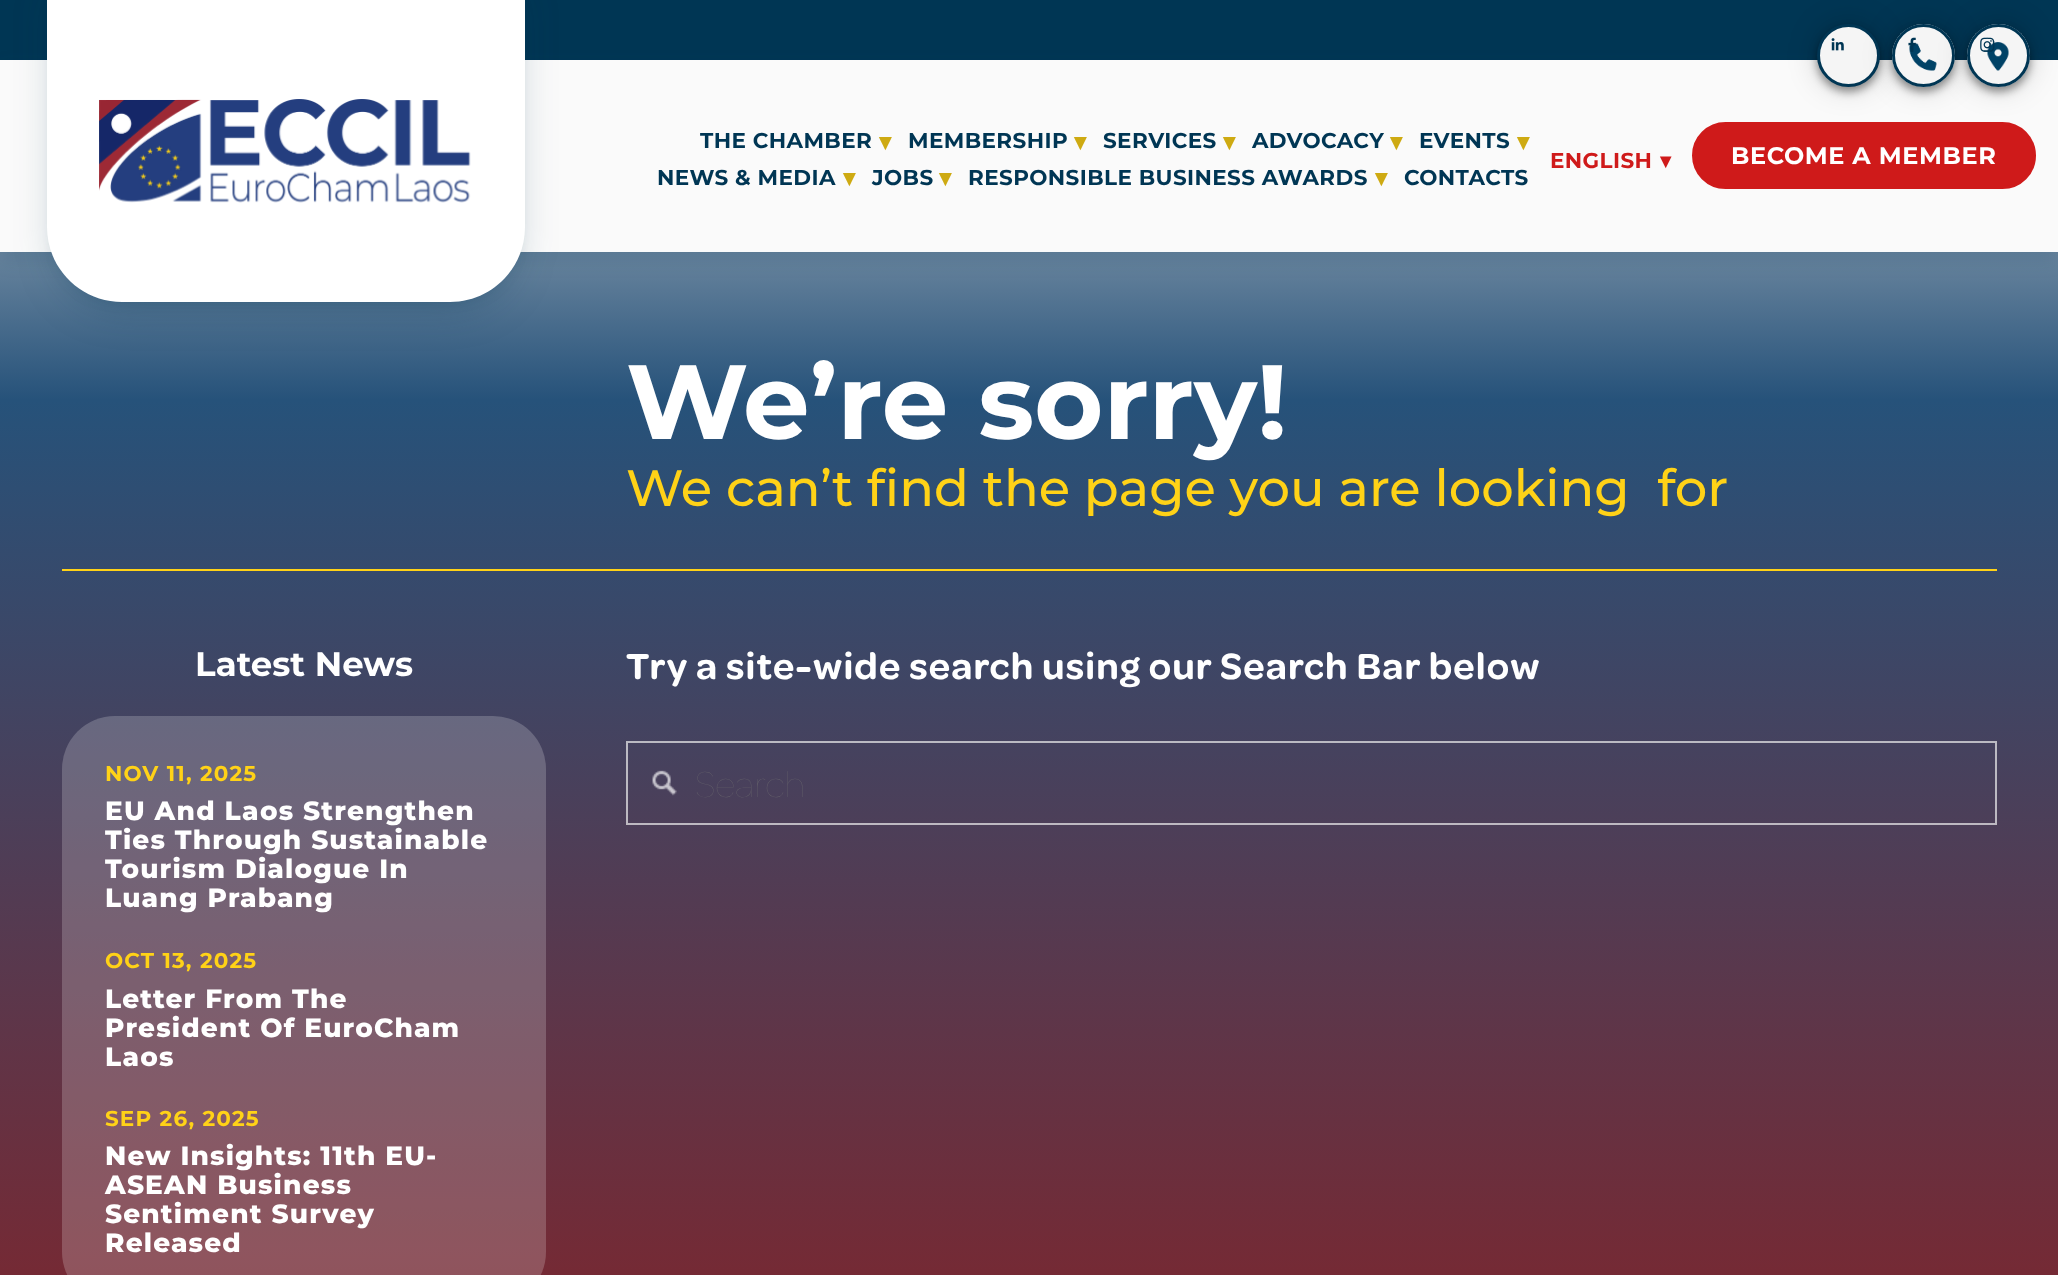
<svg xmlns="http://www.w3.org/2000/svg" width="2058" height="1275">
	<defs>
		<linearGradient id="g1" gradientUnits="userSpaceOnUse" x1="1029" y1="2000" x2="1029" y2="0"><stop offset="0.2" stop-color="#921B1B" /><stop offset="0.8" stop-color="#26527A" /><stop offset="1" stop-color="#D9D9D9" /></linearGradient>
	</defs>
	<rect width="100%" height="100%" fill="#FFFFFF" />
	<rect x="0" y="252" width="2058" height="1023" fill="url(#g1)" />
	<rect x="0" y="0" width="2058" height="60" fill="#003654" />
	<rect x="0" y="68" width="2058" height="192" fill="#003654" fill-opacity="0.15" filter="blur(9px)" />
	<rect x="0" y="60" width="2058" height="192" fill="#FAFAFA" />
	<rect x="69" y="-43" width="434" height="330" rx="53" fill="#003654" filter="blur(11px)" />
	<rect x="62" y="-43" width="448" height="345" rx="60" fill="#003654" fill-opacity="0.3" filter="blur(22.5px)" />
	<path d="M47-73H525V227C525 268.5 491.5 302 450 302H122C80.5 302 47 268.5 47 227Z" fill="#FFFFFF" />
	<image x="99" y="99" width="372" height="104" href="assets/img1.png" />
	<text x="700" y="148" font-family="Montserrat" font-size="21.5" font-weight="700" letter-spacing="0.4" fill="#003654">THE CHAMBER</text>
	<text x="879" y="150" font-family="DejaVu Sans" font-size="24" font-weight="700" letter-spacing="0.4" fill="#CEAA12">▾</text>
	<text x="908" y="148" font-family="Montserrat" font-size="21.5" font-weight="700" letter-spacing="0.4" fill="#003654">MEMBERSHIP</text>
	<text x="1074" y="150" font-family="DejaVu Sans" font-size="24" font-weight="700" letter-spacing="0.4" fill="#CEAA12">▾</text>
	<text x="1103" y="148" font-family="Montserrat" font-size="21.5" font-weight="700" letter-spacing="0.4" fill="#003654">SERVICES</text>
	<text x="1223" y="150" font-family="DejaVu Sans" font-size="24" font-weight="700" letter-spacing="0.4" fill="#CEAA12">▾</text>
	<text x="1252" y="148" font-family="Montserrat" font-size="21.5" font-weight="700" letter-spacing="0.4" fill="#003654">ADVOCACY</text>
	<text x="1390" y="150" font-family="DejaVu Sans" font-size="24" font-weight="700" letter-spacing="0.4" fill="#CEAA12">▾</text>
	<text x="1419" y="148" font-family="Montserrat" font-size="21.5" font-weight="700" letter-spacing="0.4" fill="#003654">EVENTS</text>
	<text x="1517" y="150" font-family="DejaVu Sans" font-size="24" font-weight="700" letter-spacing="0.4" fill="#CEAA12">▾</text>
	<text x="657" y="185" font-family="Montserrat" font-size="21.5" font-weight="700" letter-spacing="0.4" fill="#003654">NEWS &amp; MEDIA</text>
	<text x="843" y="186" font-family="DejaVu Sans" font-size="24" font-weight="700" letter-spacing="0.4" fill="#CEAA12">▾</text>
	<text x="872" y="185" font-family="Montserrat" font-size="21.5" font-weight="700" letter-spacing="0.4" fill="#003654">JOBS</text>
	<text x="939" y="186" font-family="DejaVu Sans" font-size="24" font-weight="700" letter-spacing="0.4" fill="#CEAA12">▾</text>
	<text x="968" y="185" font-family="Montserrat" font-size="21.5" font-weight="700" letter-spacing="0.4" fill="#003654">RESPONSIBLE BUSINESS AWARDS</text>
	<text x="1375" y="186" font-family="DejaVu Sans" font-size="24" font-weight="700" letter-spacing="0.4" fill="#CEAA12">▾</text>
	<text x="1404" y="185" font-family="Montserrat" font-size="21.5" font-weight="700" letter-spacing="0.4" fill="#003654">CONTACTS</text>
	<rect x="1693.5" y="123.5" width="341" height="64" rx="32" fill="#CF1A1A" stroke="#CF1A1A" stroke-width="3" />
	<rect x="1817" y="24" width="63" height="63" rx="31.5" fill="#000000" fill-opacity="0.2" filter="blur(15px)" />
	<rect x="1817" y="29" width="63" height="63" rx="31.5" fill="#000000" fill-opacity="0.4" filter="blur(4px)" />
	<circle cx="1848.5" cy="55.5" r="30" fill="#F5F5F5" stroke="#003654" stroke-width="3" />
	<image x="1831" y="38" width="13" height="13" href="assets/img2.png" />
	<rect x="1892" y="24" width="63" height="63" rx="31.5" fill="#000000" fill-opacity="0.2" filter="blur(15px)" />
	<rect x="1892" y="29" width="63" height="63" rx="31.5" fill="#000000" fill-opacity="0.4" filter="blur(4px)" />
	<circle cx="1923.5" cy="55.5" r="31.5" fill="#F5F5F5" />
	<image x="1909" y="42" width="28" height="29" href="assets/img3.png" />
	<circle cx="1923.5" cy="55.5" r="30" fill="none" stroke="#003654" stroke-width="3" />
	<image x="1908" y="37" width="8" height="15" href="assets/img4.png" />
	<rect x="1967" y="24" width="63" height="63" rx="31.5" fill="#000000" fill-opacity="0.2" filter="blur(15px)" />
	<rect x="1967" y="29" width="63" height="63" rx="31.5" fill="#000000" fill-opacity="0.4" filter="blur(4px)" />
	<circle cx="1998.5" cy="55.5" r="31.5" fill="#F5F5F5" />
	<image x="1983" y="41" width="26" height="30" href="assets/img5.png" />
	<circle cx="1998.5" cy="55.5" r="30" fill="none" stroke="#003654" stroke-width="3" />
	<image x="1980" y="37" width="15" height="15" href="assets/img6.png" />
	<text x="1550" y="168" font-family="Montserrat" font-size="21.5" font-weight="700" letter-spacing="0.4" fill="#CF1A1A">ENGLISH</text>
	<text x="1660" y="168" font-family="DejaVu Sans" font-size="21.5" font-weight="700" letter-spacing="0.4" fill="#CF1A1A">▾</text>
	<text x="1731" y="164" font-family="Montserrat" font-size="24" font-weight="700" letter-spacing="0.6" fill="#FFFFFF">BECOME A MEMBER</text>
	<text x="626" y="439" font-family="Montserrat" font-size="105.5" font-weight="700" fill="#FFFFFF">We’re sorry!</text>
	<text x="626" y="506" font-family="Montserrat" font-size="51.2" font-weight="500" fill="#FFD217" xml:space="preserve">We can’t find the page you are looking  for</text>
	<rect x="62" y="569" width="1935" height="2" fill="#FFD217" />
	<text x="195" y="676" font-family="Montserrat" font-size="34" font-weight="700" fill="#FFFFFF">Latest News</text>
	<text x="626" y="679" font-family="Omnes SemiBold" font-size="38.8" font-weight="600" letter-spacing="1.15" fill="#FFFFFF">Try a site-wide search using our Search Bar below</text>
	<rect x="62" y="716" width="484" height="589" rx="53" fill="#FFFFFF" fill-opacity="0.2" />
	<text x="105" y="781" font-family="Montserrat" font-size="21.5" font-weight="700" letter-spacing="1.15" fill="#FFD217">NOV 11, 2025</text>
	<g font-family="Montserrat" font-size="26.4" font-weight="800" letter-spacing="1.15" fill="#FFFFFF">
		<text x="105" y="820">EU And Laos Strengthen</text>
		<text x="105" y="849">Ties Through Sustainable</text>
		<text x="105" y="878">Tourism Dialogue In</text>
		<text x="105" y="907">Luang Prabang</text>
	</g>
	<text x="105" y="968" font-family="Montserrat" font-size="21.5" font-weight="700" letter-spacing="1.15" fill="#FFD217">OCT 13, 2025</text>
	<g font-family="Montserrat" font-size="26.4" font-weight="800" letter-spacing="1.15" fill="#FFFFFF">
		<text x="105" y="1008">Letter From The</text>
		<text x="105" y="1037">President Of EuroCham</text>
		<text x="105" y="1066">Laos</text>
	</g>
	<text x="105" y="1126" font-family="Montserrat" font-size="21.5" font-weight="700" letter-spacing="1.15" fill="#FFD217">SEP 26, 2025</text>
	<g font-family="Montserrat" font-size="26.4" font-weight="800" letter-spacing="1.15" fill="#FFFFFF">
		<text x="105" y="1165">New Insights: 11th EU-</text>
		<text x="105" y="1194">ASEAN Business</text>
		<text x="105" y="1223">Sentiment Survey</text>
		<text x="105" y="1252">Released</text>
	</g>
	<image x="652" y="770" width="25" height="26" href="assets/img7.png" />
	<rect x="627" y="742" width="1369" height="82" fill="none" stroke="#EEEEEE" stroke-opacity="0.7" stroke-width="2" />
	<text x="695" y="797" font-family="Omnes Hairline" font-size="38.8" font-weight="100" fill="#68656D">Search</text>
</svg>
